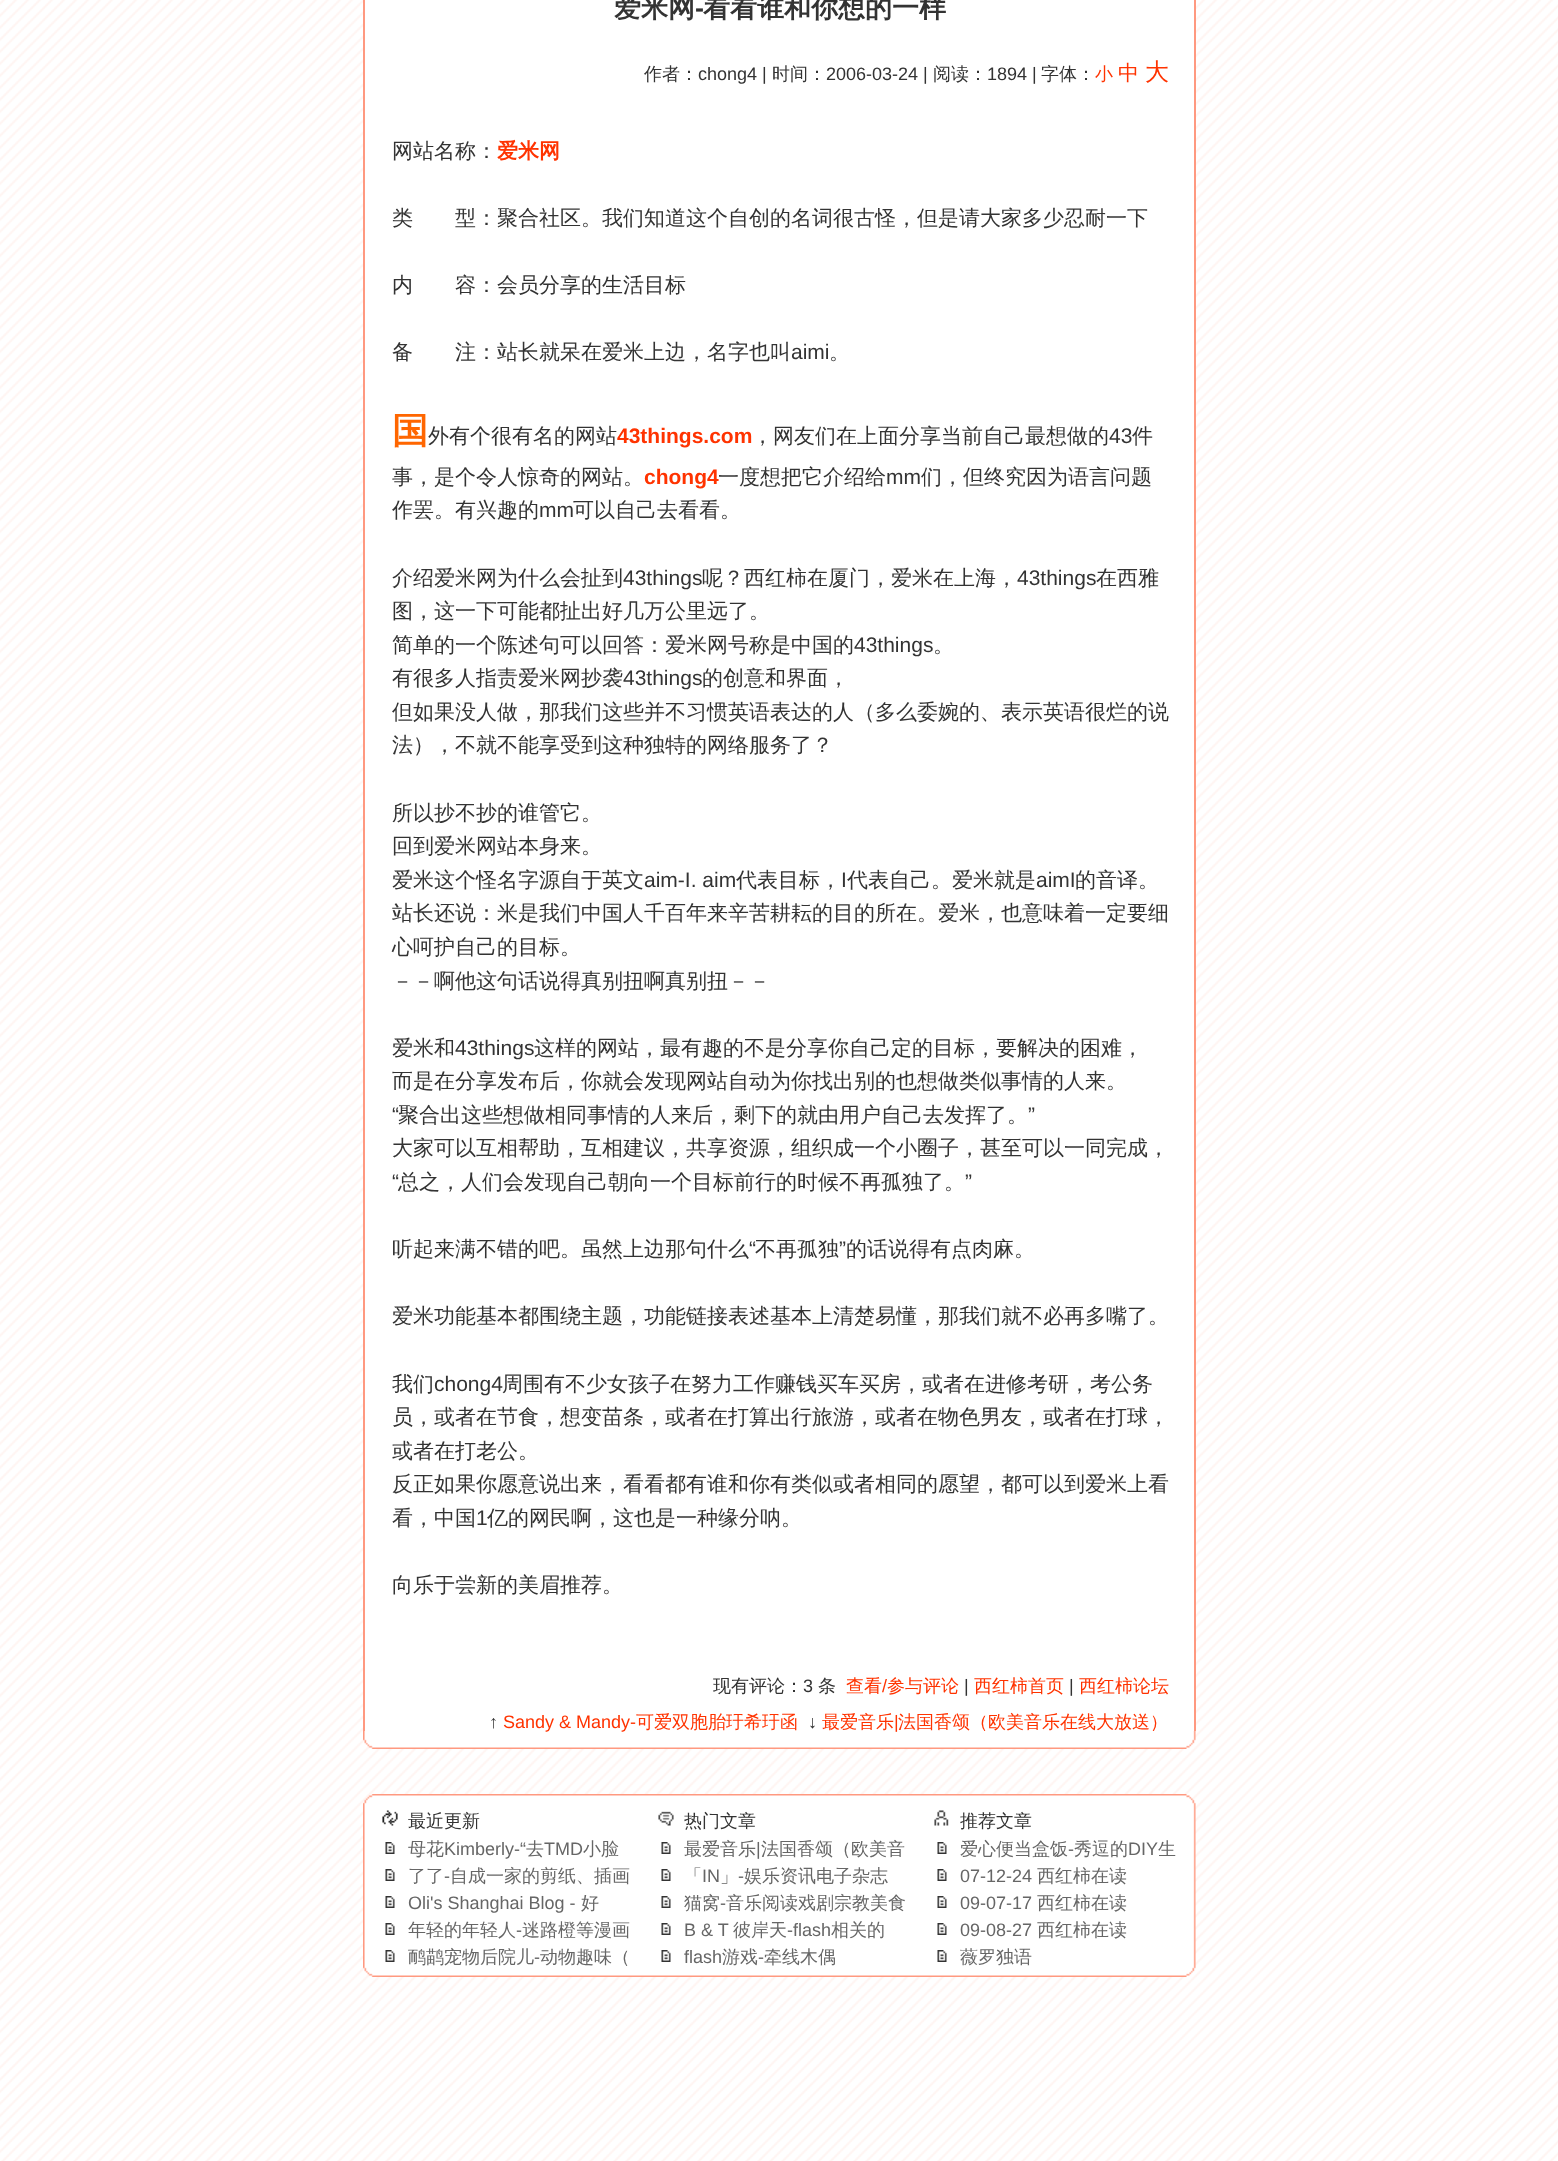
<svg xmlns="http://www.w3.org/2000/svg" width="1558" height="2161">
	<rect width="100%" height="100%" fill="#FFFFFF" />
	<image x="0" y="0" width="1558" height="2161" href="assets/img1.png" />
	<rect x="365" y="0" width="829" height="1731" fill="#FFFFFF" />
	<rect x="1194" y="0" width="2" height="1731" fill="#FF9980" />
	<rect x="363" y="0" width="2" height="1731" fill="#FF9980" />
	<text x="614" y="17" font-family="WenQuanYi Zen Hei" font-size="27" font-weight="700" fill="#333333">爱米网</text>
	<text x="695" y="17" font-family="Liberation Sans" font-size="27" font-weight="700" fill="#333333">-</text>
	<text x="703" y="17" font-family="WenQuanYi Zen Hei" font-size="27" font-weight="700" fill="#333333">看看谁和你想的一样</text>
	<text x="392" y="158" font-family="WenQuanYi Zen Hei" font-size="21" font-weight="500" fill="#333333">网站名称：</text>
	<text x="497" y="158" font-family="WenQuanYi Zen Hei" font-size="21" font-weight="700" fill="#FF3300">爱米网</text>
	<g font-family="WenQuanYi Zen Hei" font-size="21" font-weight="500" fill="#333333">
		<text x="392" y="225">类　　型：聚合社区。我们知道这个自创的名词很古怪，但是请大家多少忍耐一下</text>
		<text x="392" y="292">内　　容：会员分享的生活目标</text>
		<text x="392" y="359">备　　注：站长就呆在爱米上边，名字也叫</text>
	</g>
	<text x="791" y="359" font-family="Liberation Sans" font-size="21" fill="#333333">aimi</text>
	<text x="829" y="359" font-family="WenQuanYi Zen Hei" font-size="21" font-weight="500" fill="#333333">。</text>
	<text x="392" y="443" font-family="WenQuanYi Zen Hei" font-size="36" font-weight="700" fill="#FF6600">国</text>
	<text x="428" y="443" font-family="WenQuanYi Zen Hei" font-size="21" font-weight="500" fill="#333333">外有个很有名的网站</text>
	<text x="617" y="443" font-family="Liberation Sans" font-size="21" font-weight="700" fill="#FF3300">43things.com</text>
	<text x="752" y="443" font-family="WenQuanYi Zen Hei" font-size="21" font-weight="500" fill="#333333">，网友们在上面分享当前自己最想做的</text>
	<text x="1109" y="443" font-family="Liberation Sans" font-size="21" fill="#333333">43</text>
	<g font-family="WenQuanYi Zen Hei" font-size="21" font-weight="500" fill="#333333">
		<text x="1132" y="443">件</text>
		<text x="392" y="484">事，是个令人惊奇的网站。</text>
	</g>
	<text x="644" y="484" font-family="Liberation Sans" font-size="21" font-weight="700" fill="#FF3300">chong4</text>
	<text x="718" y="484" font-family="WenQuanYi Zen Hei" font-size="21" font-weight="500" fill="#333333">一度想把它介绍给</text>
	<text x="886" y="484" font-family="Liberation Sans" font-size="21" fill="#333333">mm</text>
	<g font-family="WenQuanYi Zen Hei" font-size="21" font-weight="500" fill="#333333">
		<text x="921" y="484">们，但终究因为语言问题</text>
		<text x="392" y="517">作罢。有兴趣的</text>
	</g>
	<text x="539" y="517" font-family="Liberation Sans" font-size="21" fill="#333333">mm</text>
	<g font-family="WenQuanYi Zen Hei" font-size="21" font-weight="500" fill="#333333">
		<text x="573" y="517">可以自己去看看。</text>
		<text x="392" y="585">介绍爱米网为什么会扯到</text>
	</g>
	<text x="623" y="585" font-family="Liberation Sans" font-size="21" fill="#333333">43things</text>
	<text x="702" y="585" font-family="WenQuanYi Zen Hei" font-size="21" font-weight="500" fill="#333333">呢？西红柿在厦门，爱米在上海，</text>
	<text x="1017" y="585" font-family="Liberation Sans" font-size="21" fill="#333333">43things</text>
	<g font-family="WenQuanYi Zen Hei" font-size="21" font-weight="500" fill="#333333">
		<text x="1096" y="585">在西雅</text>
		<text x="392" y="618">图，这一下可能都扯出好几万公里远了。</text>
		<text x="392" y="652">简单的一个陈述句可以回答：爱米网号称是中国的</text>
	</g>
	<text x="854" y="652" font-family="Liberation Sans" font-size="21" fill="#333333">43things</text>
	<g font-family="WenQuanYi Zen Hei" font-size="21" font-weight="500" fill="#333333">
		<text x="933" y="652">。</text>
		<text x="392" y="685">有很多人指责爱米网抄袭</text>
	</g>
	<text x="623" y="685" font-family="Liberation Sans" font-size="21" fill="#333333">43things</text>
	<g font-family="WenQuanYi Zen Hei" font-size="21" font-weight="500" fill="#333333">
		<text x="702" y="685">的创意和界面，</text>
		<text x="392" y="719">但如果没人做，那我们这些并不习惯英语表达的人（多么委婉的、表示英语很烂的说</text>
		<text x="392" y="752">法），不就不能享受到这种独特的网络服务了？</text>
		<text x="392" y="820">所以抄不抄的谁管它。</text>
		<text x="392" y="853">回到爱米网站本身来。</text>
		<text x="392" y="887">爱米这个怪名字源自于英文</text>
	</g>
	<text x="644" y="887" font-family="Liberation Sans" font-size="21" fill="#333333">aim-I. aim</text>
	<text x="736" y="887" font-family="WenQuanYi Zen Hei" font-size="21" font-weight="500" fill="#333333">代表目标，</text>
	<text x="841" y="887" font-family="Liberation Sans" font-size="21" fill="#333333">I</text>
	<text x="847" y="887" font-family="WenQuanYi Zen Hei" font-size="21" font-weight="500" fill="#333333">代表自己。爱米就是</text>
	<text x="1036" y="887" font-family="Liberation Sans" font-size="21" fill="#333333">aimI</text>
	<g font-family="WenQuanYi Zen Hei" font-size="21" font-weight="500" fill="#333333">
		<text x="1075" y="887">的音译。</text>
		<text x="392" y="920">站长还说：米是我们中国人千百年来辛苦耕耘的目的所在。爱米，也意味着一定要细</text>
		<text x="392" y="954">心呵护自己的目标。</text>
		<text x="392" y="988">－－啊他这句话说得真别扭啊真别扭－－</text>
		<text x="392" y="1055">爱米和</text>
	</g>
	<text x="455" y="1055" font-family="Liberation Sans" font-size="21" fill="#333333">43things</text>
	<g font-family="WenQuanYi Zen Hei" font-size="21" font-weight="500" fill="#333333">
		<text x="534" y="1055">这样的网站，最有趣的不是分享你自己定的目标，要解决的困难，</text>
		<text x="392" y="1088">而是在分享发布后，你就会发现网站自动为你找出别的也想做类似事情的人来。</text>
	</g>
	<text x="392" y="1122" font-family="Liberation Sans" font-size="21" fill="#333333">“</text>
	<text x="398" y="1122" font-family="WenQuanYi Zen Hei" font-size="21" font-weight="500" fill="#333333">聚合出这些想做相同事情的人来后，剩下的就由用户自己去发挥了。</text>
	<text x="1028" y="1122" font-family="Liberation Sans" font-size="21" fill="#333333">”</text>
	<text x="392" y="1155" font-family="WenQuanYi Zen Hei" font-size="21" font-weight="500" fill="#333333">大家可以互相帮助，互相建议，共享资源，组织成一个小圈子，甚至可以一同完成，</text>
	<text x="392" y="1189" font-family="Liberation Sans" font-size="21" fill="#333333">“</text>
	<text x="398" y="1189" font-family="WenQuanYi Zen Hei" font-size="21" font-weight="500" fill="#333333">总之，人们会发现自己朝向一个目标前行的时候不再孤独了。</text>
	<text x="965" y="1189" font-family="Liberation Sans" font-size="21" fill="#333333">”</text>
	<text x="392" y="1256" font-family="WenQuanYi Zen Hei" font-size="21" font-weight="500" fill="#333333">听起来满不错的吧。虽然上边那句什么</text>
	<text x="749" y="1256" font-family="Liberation Sans" font-size="21" fill="#333333">“</text>
	<text x="755" y="1256" font-family="WenQuanYi Zen Hei" font-size="21" font-weight="500" fill="#333333">不再孤独</text>
	<text x="839" y="1256" font-family="Liberation Sans" font-size="21" fill="#333333">”</text>
	<g font-family="WenQuanYi Zen Hei" font-size="21" font-weight="500" fill="#333333">
		<text x="846" y="1256">的话说得有点肉麻。</text>
		<text x="392" y="1323">爱米功能基本都围绕主题，功能链接表述基本上清楚易懂，那我们就不必再多嘴了。</text>
		<text x="392" y="1391">我们</text>
	</g>
	<text x="434" y="1391" font-family="Liberation Sans" font-size="21" fill="#333333">chong4</text>
	<g font-family="WenQuanYi Zen Hei" font-size="21" font-weight="500" fill="#333333">
		<text x="502" y="1391">周围有不少女孩子在努力工作赚钱买车买房，或者在进修考研，考公务</text>
		<text x="392" y="1424">员，或者在节食，想变苗条，或者在打算出行旅游，或者在物色男友，或者在打球，</text>
		<text x="392" y="1458">或者在打老公。</text>
		<text x="392" y="1491">反正如果你愿意说出来，看看都有谁和你有类似或者相同的愿望，都可以到爱米上看</text>
		<text x="392" y="1525">看，中国</text>
	</g>
	<text x="476" y="1525" font-family="Liberation Sans" font-size="21" fill="#333333">1</text>
	<g font-family="WenQuanYi Zen Hei" font-size="21" font-weight="500" fill="#333333">
		<text x="487" y="1525">亿的网民啊，这也是一种缘分呐。</text>
		<text x="392" y="1592">向乐于尝新的美眉推荐。</text>
	</g>
	<text x="713" y="1692" font-family="WenQuanYi Zen Hei" font-size="18" font-weight="500" fill="#333333">现有评论：</text>
	<text x="803" y="1692" font-family="Liberation Sans" font-size="18" fill="#333333">3</text>
	<text x="818" y="1692" font-family="WenQuanYi Zen Hei" font-size="18" font-weight="500" fill="#333333">条</text>
	<text x="846" y="1692" font-family="WenQuanYi Zen Hei" font-size="18" font-weight="500" fill="#FF3300">查看</text>
	<text x="882" y="1692" font-family="Liberation Sans" font-size="18" fill="#FF3300">/</text>
	<text x="887" y="1692" font-family="WenQuanYi Zen Hei" font-size="18" font-weight="500" fill="#FF3300">参与评论</text>
	<text x="964" y="1692" font-family="Liberation Sans" font-size="18" fill="#333333">|</text>
	<text x="974" y="1692" font-family="WenQuanYi Zen Hei" font-size="18" font-weight="500" fill="#FF3300">西红柿首页</text>
	<text x="1069" y="1692" font-family="Liberation Sans" font-size="18" fill="#333333">|</text>
	<text x="1079" y="1692" font-family="WenQuanYi Zen Hei" font-size="18" font-weight="500" fill="#FF3300">西红柿论坛</text>
	<text x="489" y="1728" font-family="Liberation Sans" font-size="18" fill="#333333">↑</text>
	<image x="363" y="1731" width="833" height="18" href="assets/img2.png" />
	<text x="503" y="1728" font-family="Liberation Sans" font-size="18" fill="#FF3300">Sandy &amp; Mandy-</text>
	<text x="636" y="1728" font-family="WenQuanYi Zen Hei" font-size="18" font-weight="500" fill="#FF3300">可爱双胞胎玗希玗函</text>
	<text x="808" y="1728" font-family="Liberation Sans" font-size="18" fill="#333333">↓</text>
	<text x="822" y="1728" font-family="WenQuanYi Zen Hei" font-size="18" font-weight="500" fill="#FF3300">最爱音乐</text>
	<text x="894" y="1728" font-family="Liberation Sans" font-size="18" fill="#FF3300">|</text>
	<text x="898" y="1728" font-family="WenQuanYi Zen Hei" font-size="18" font-weight="500" fill="#FF3300">法国香颂（欧美音乐在线大放送）</text>
	<text x="644" y="80" font-family="WenQuanYi Zen Hei" font-size="18" font-weight="500" fill="#333333">作者：</text>
	<text x="698" y="80" font-family="Liberation Sans" font-size="18" fill="#333333">chong4 |</text>
	<text x="772" y="80" font-family="WenQuanYi Zen Hei" font-size="18" font-weight="500" fill="#333333">时间：</text>
	<text x="826" y="80" font-family="Liberation Sans" font-size="18" fill="#333333">2006-03-24 |</text>
	<text x="933" y="80" font-family="WenQuanYi Zen Hei" font-size="18" font-weight="500" fill="#333333">阅读：</text>
	<text x="987" y="80" font-family="Liberation Sans" font-size="18" fill="#333333">1894 |</text>
	<text x="1041" y="80" font-family="WenQuanYi Zen Hei" font-size="18" font-weight="500" fill="#333333">字体：</text>
	<text x="1095" y="80" font-family="WenQuanYi Zen Hei" font-size="18" font-weight="500" fill="#FF3300">小</text>
	<text x="1118" y="80" font-family="WenQuanYi Zen Hei" font-size="21" font-weight="500" fill="#FF3300">中</text>
	<text x="1145" y="80" font-family="WenQuanYi Zen Hei" font-size="24" font-weight="500" fill="#FF3300">大</text>
	<image x="363" y="1794" width="833" height="183" href="assets/img3.png" />
	<image x="382" y="1810" width="16" height="16" href="assets/img4.png" />
	<text x="408" y="1827" font-family="WenQuanYi Zen Hei" font-size="18" font-weight="500" fill="#333333">最近更新</text>
	<image x="385" y="1842" width="10" height="12" href="assets/img5.png" />
	<text x="408" y="1855" font-family="WenQuanYi Zen Hei" font-size="18" font-weight="500" fill="#666666">母花</text>
	<text x="444" y="1855" font-family="Liberation Sans" font-size="18" fill="#666666">Kimberly-“</text>
	<text x="526" y="1855" font-family="WenQuanYi Zen Hei" font-size="18" font-weight="500" fill="#666666">去</text>
	<text x="544" y="1855" font-family="Liberation Sans" font-size="18" fill="#666666">TMD</text>
	<text x="583" y="1855" font-family="WenQuanYi Zen Hei" font-size="18" font-weight="500" fill="#666666">小脸</text>
	<image x="385" y="1869" width="10" height="12" href="assets/img5.png" />
	<text x="408" y="1882" font-family="WenQuanYi Zen Hei" font-size="18" font-weight="500" fill="#666666">了了</text>
	<text x="444" y="1882" font-family="Liberation Sans" font-size="18" fill="#666666">-</text>
	<text x="450" y="1882" font-family="WenQuanYi Zen Hei" font-size="18" font-weight="500" fill="#666666">自成一家的剪纸、插画</text>
	<image x="385" y="1896" width="10" height="12" href="assets/img5.png" />
	<text x="408" y="1909" font-family="Liberation Sans" font-size="18" fill="#666666">Oli's Shanghai Blog -</text>
	<text x="581" y="1909" font-family="WenQuanYi Zen Hei" font-size="18" font-weight="500" fill="#666666">好</text>
	<image x="385" y="1923" width="10" height="12" href="assets/img5.png" />
	<text x="408" y="1936" font-family="WenQuanYi Zen Hei" font-size="18" font-weight="500" fill="#666666">年轻的年轻人</text>
	<text x="516" y="1936" font-family="Liberation Sans" font-size="18" fill="#666666">-</text>
	<text x="522" y="1936" font-family="WenQuanYi Zen Hei" font-size="18" font-weight="500" fill="#666666">迷路橙等漫画</text>
	<image x="385" y="1950" width="10" height="12" href="assets/img5.png" />
	<text x="408" y="1963" font-family="WenQuanYi Zen Hei" font-size="18" font-weight="500" fill="#666666">鸸鹋宠物后院儿</text>
	<text x="534" y="1963" font-family="Liberation Sans" font-size="18" fill="#666666">-</text>
	<text x="540" y="1963" font-family="WenQuanYi Zen Hei" font-size="18" font-weight="500" fill="#666666">动物趣味（</text>
	<image x="658" y="1811" width="16" height="15" href="assets/img6.png" />
	<text x="684" y="1827" font-family="WenQuanYi Zen Hei" font-size="18" font-weight="500" fill="#333333">热门文章</text>
	<image x="661" y="1842" width="10" height="12" href="assets/img5.png" />
	<text x="684" y="1855" font-family="WenQuanYi Zen Hei" font-size="18" font-weight="500" fill="#666666">最爱音乐</text>
	<text x="756" y="1855" font-family="Liberation Sans" font-size="18" fill="#666666">|</text>
	<text x="761" y="1855" font-family="WenQuanYi Zen Hei" font-size="18" font-weight="500" fill="#666666">法国香颂（欧美音</text>
	<image x="661" y="1869" width="10" height="12" href="assets/img5.png" />
	<text x="684" y="1882" font-family="WenQuanYi Zen Hei" font-size="18" font-weight="500" fill="#666666">「</text>
	<text x="702" y="1882" font-family="Liberation Sans" font-size="18" fill="#666666">IN</text>
	<text x="720" y="1882" font-family="WenQuanYi Zen Hei" font-size="18" font-weight="500" fill="#666666">」</text>
	<text x="738" y="1882" font-family="Liberation Sans" font-size="18" fill="#666666">-</text>
	<text x="744" y="1882" font-family="WenQuanYi Zen Hei" font-size="18" font-weight="500" fill="#666666">娱乐资讯电子杂志</text>
	<image x="661" y="1896" width="10" height="12" href="assets/img5.png" />
	<text x="684" y="1909" font-family="WenQuanYi Zen Hei" font-size="18" font-weight="500" fill="#666666">猫窝</text>
	<text x="720" y="1909" font-family="Liberation Sans" font-size="18" fill="#666666">-</text>
	<text x="726" y="1909" font-family="WenQuanYi Zen Hei" font-size="18" font-weight="500" fill="#666666">音乐阅读戏剧宗教美食</text>
	<image x="661" y="1923" width="10" height="12" href="assets/img5.png" />
	<text x="684" y="1936" font-family="Liberation Sans" font-size="18" fill="#666666">B &amp; T</text>
	<text x="733" y="1936" font-family="WenQuanYi Zen Hei" font-size="18" font-weight="500" fill="#666666">彼岸天</text>
	<text x="787" y="1936" font-family="Liberation Sans" font-size="18" fill="#666666">-flash</text>
	<text x="831" y="1936" font-family="WenQuanYi Zen Hei" font-size="18" font-weight="500" fill="#666666">相关的</text>
	<image x="661" y="1950" width="10" height="12" href="assets/img5.png" />
	<text x="684" y="1963" font-family="Liberation Sans" font-size="18" fill="#666666">flash</text>
	<text x="722" y="1963" font-family="WenQuanYi Zen Hei" font-size="18" font-weight="500" fill="#666666">游戏</text>
	<text x="758" y="1963" font-family="Liberation Sans" font-size="18" fill="#666666">-</text>
	<text x="764" y="1963" font-family="WenQuanYi Zen Hei" font-size="18" font-weight="500" fill="#666666">牵线木偶</text>
	<image x="934" y="1810" width="15" height="16" href="assets/img7.png" />
	<text x="960" y="1827" font-family="WenQuanYi Zen Hei" font-size="18" font-weight="500" fill="#333333">推荐文章</text>
	<image x="937" y="1842" width="10" height="12" href="assets/img8.png" />
	<text x="960" y="1855" font-family="WenQuanYi Zen Hei" font-size="18" font-weight="500" fill="#666666">爱心便当盒饭</text>
	<text x="1068" y="1855" font-family="Liberation Sans" font-size="18" fill="#666666">-</text>
	<text x="1074" y="1855" font-family="WenQuanYi Zen Hei" font-size="18" font-weight="500" fill="#666666">秀逗的</text>
	<text x="1128" y="1855" font-family="Liberation Sans" font-size="18" fill="#666666">DIY</text>
	<text x="1158" y="1855" font-family="WenQuanYi Zen Hei" font-size="18" font-weight="500" fill="#666666">生</text>
	<image x="937" y="1869" width="10" height="12" href="assets/img8.png" />
	<text x="960" y="1882" font-family="Liberation Sans" font-size="18" fill="#666666">07-12-24</text>
	<text x="1037" y="1882" font-family="WenQuanYi Zen Hei" font-size="18" font-weight="500" fill="#666666">西红柿在读</text>
	<image x="937" y="1896" width="10" height="12" href="assets/img8.png" />
	<text x="960" y="1909" font-family="Liberation Sans" font-size="18" fill="#666666">09-07-17</text>
	<text x="1037" y="1909" font-family="WenQuanYi Zen Hei" font-size="18" font-weight="500" fill="#666666">西红柿在读</text>
	<image x="937" y="1923" width="10" height="12" href="assets/img8.png" />
	<text x="960" y="1936" font-family="Liberation Sans" font-size="18" fill="#666666">09-08-27</text>
	<text x="1037" y="1936" font-family="WenQuanYi Zen Hei" font-size="18" font-weight="500" fill="#666666">西红柿在读</text>
	<image x="937" y="1950" width="10" height="12" href="assets/img8.png" />
	<text x="960" y="1963" font-family="WenQuanYi Zen Hei" font-size="18" font-weight="500" fill="#666666">薇罗独语</text>
</svg>
